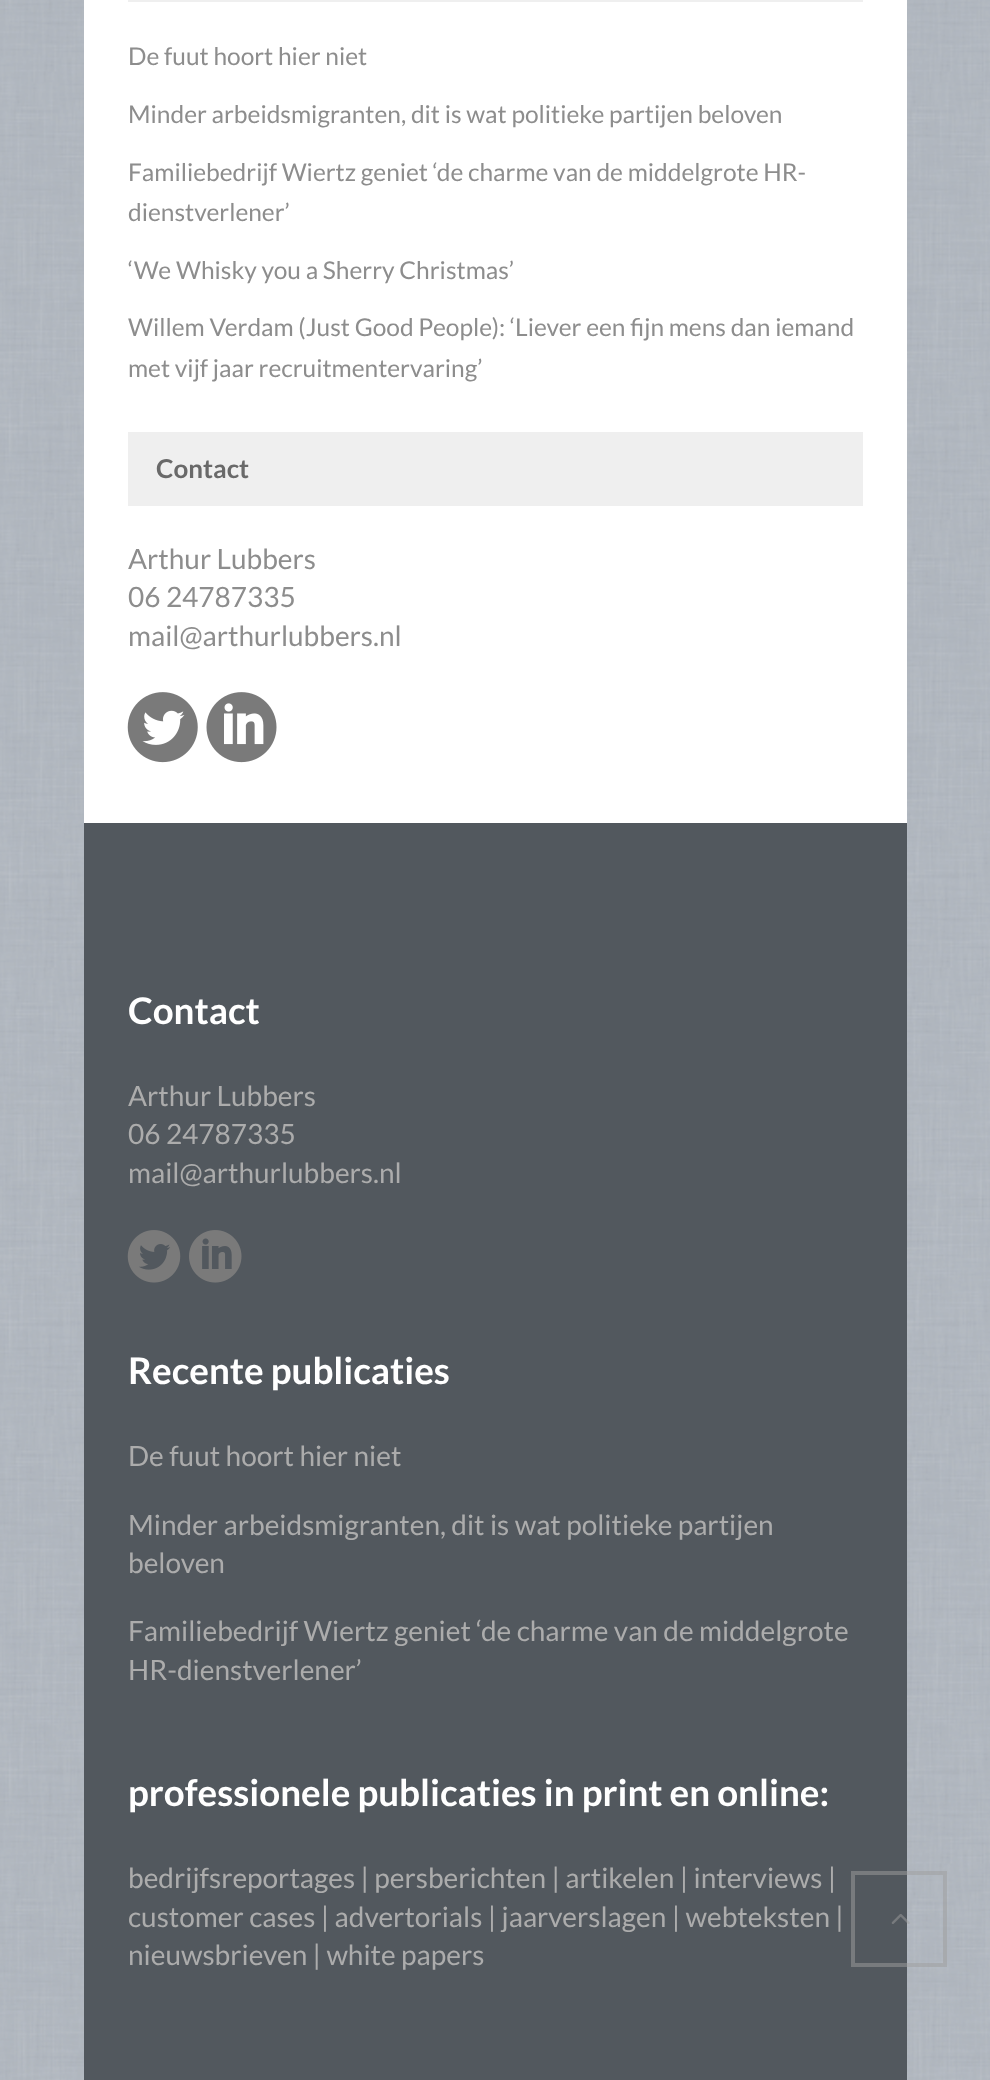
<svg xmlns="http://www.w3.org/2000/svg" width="990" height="2080">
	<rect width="100%" height="100%" fill="#FFFFFF" />
	<image x="0" y="0" width="990" height="2080" href="assets/img1.png" />
	<rect x="84" y="0" width="823" height="823" fill="#FFFFFF" />
	<rect x="128" y="0" width="735" height="2" fill="#EFEFEF" />
	<g font-family="Lato" font-size="24.5" fill="#8D8D8D">
		<text x="128" y="65">De fuut hoort hier niet</text>
		<text x="128" y="123">Minder arbeidsmigranten, dit is wat politieke partijen beloven</text>
		<text x="128" y="181">Familiebedrijf Wiertz geniet ‘de charme van de middelgrote HR-</text>
		<text x="128" y="221">dienstverlener’</text>
		<text x="128" y="279">‘We Whisky you a Sherry Christmas’</text>
		<text x="128" y="336">Willem Verdam (Just Good People): ‘Liever een fijn mens dan iemand</text>
		<text x="128" y="377">met vijf jaar recruitmentervaring’</text>
	</g>
	<rect x="128" y="432" width="735" height="74" fill="#EFEFEF" />
	<text x="156" y="478" font-family="Lato" font-size="26" font-weight="700" fill="#696969">Contact</text>
	<g font-family="Lato" font-size="28" fill="#8D8D8D">
		<text x="128" y="569">Arthur Lubbers</text>
		<text x="128" y="607">06 24787335</text>
		<text x="128" y="646">mail@arthurlubbers.nl</text>
	</g>
	<image x="127" y="692" width="71" height="71" href="assets/img2.png" />
	<image x="206" y="692" width="71" height="71" href="assets/img3.png" />
	<rect x="84" y="823" width="823" height="1257" fill="#52585E" />
	<rect x="853" y="1873" width="92" height="92" fill="none" stroke="#9D9D9D" stroke-opacity="0.5" stroke-width="4" />
	<image x="891" y="1914" width="19" height="10" href="assets/img4.png" />
	<text x="128" y="1024" font-family="Lato" font-size="36.75" font-weight="700" fill="#FFFFFF">Contact</text>
	<g font-family="Lato" font-size="28" fill="#ACACAC">
		<text x="128" y="1106">Arthur Lubbers</text>
		<text x="128" y="1144">06 24787335</text>
		<text x="128" y="1183">mail@arthurlubbers.nl</text>
	</g>
	<image x="127" y="1230" width="54" height="53" href="assets/img5.png" />
	<image x="189" y="1230" width="53" height="53" href="assets/img6.png" />
	<text x="128" y="1384" font-family="Lato" font-size="36.75" font-weight="700" fill="#FFFFFF">Recente publicaties</text>
	<g font-family="Lato" font-size="28" fill="#ACACAC">
		<text x="128" y="1466">De fuut hoort hier niet</text>
		<text x="128" y="1535">Minder arbeidsmigranten, dit is wat politieke partijen</text>
		<text x="128" y="1573">beloven</text>
		<text x="128" y="1641">Familiebedrijf Wiertz geniet ‘de charme van de middelgrote</text>
		<text x="128" y="1680">HR-dienstverlener’</text>
	</g>
	<text x="128" y="1806" font-family="Lato" font-size="36.75" font-weight="700" fill="#FFFFFF">professionele publicaties in print en online:</text>
	<g font-family="Lato" font-size="28" fill="#ACACAC">
		<text x="128" y="1888">bedrijfsreportages | persberichten | artikelen | interviews |</text>
		<text x="128" y="1927">customer cases | advertorials | jaarverslagen | webteksten |</text>
		<text x="128" y="1965">nieuwsbrieven | white papers</text>
	</g>
</svg>
